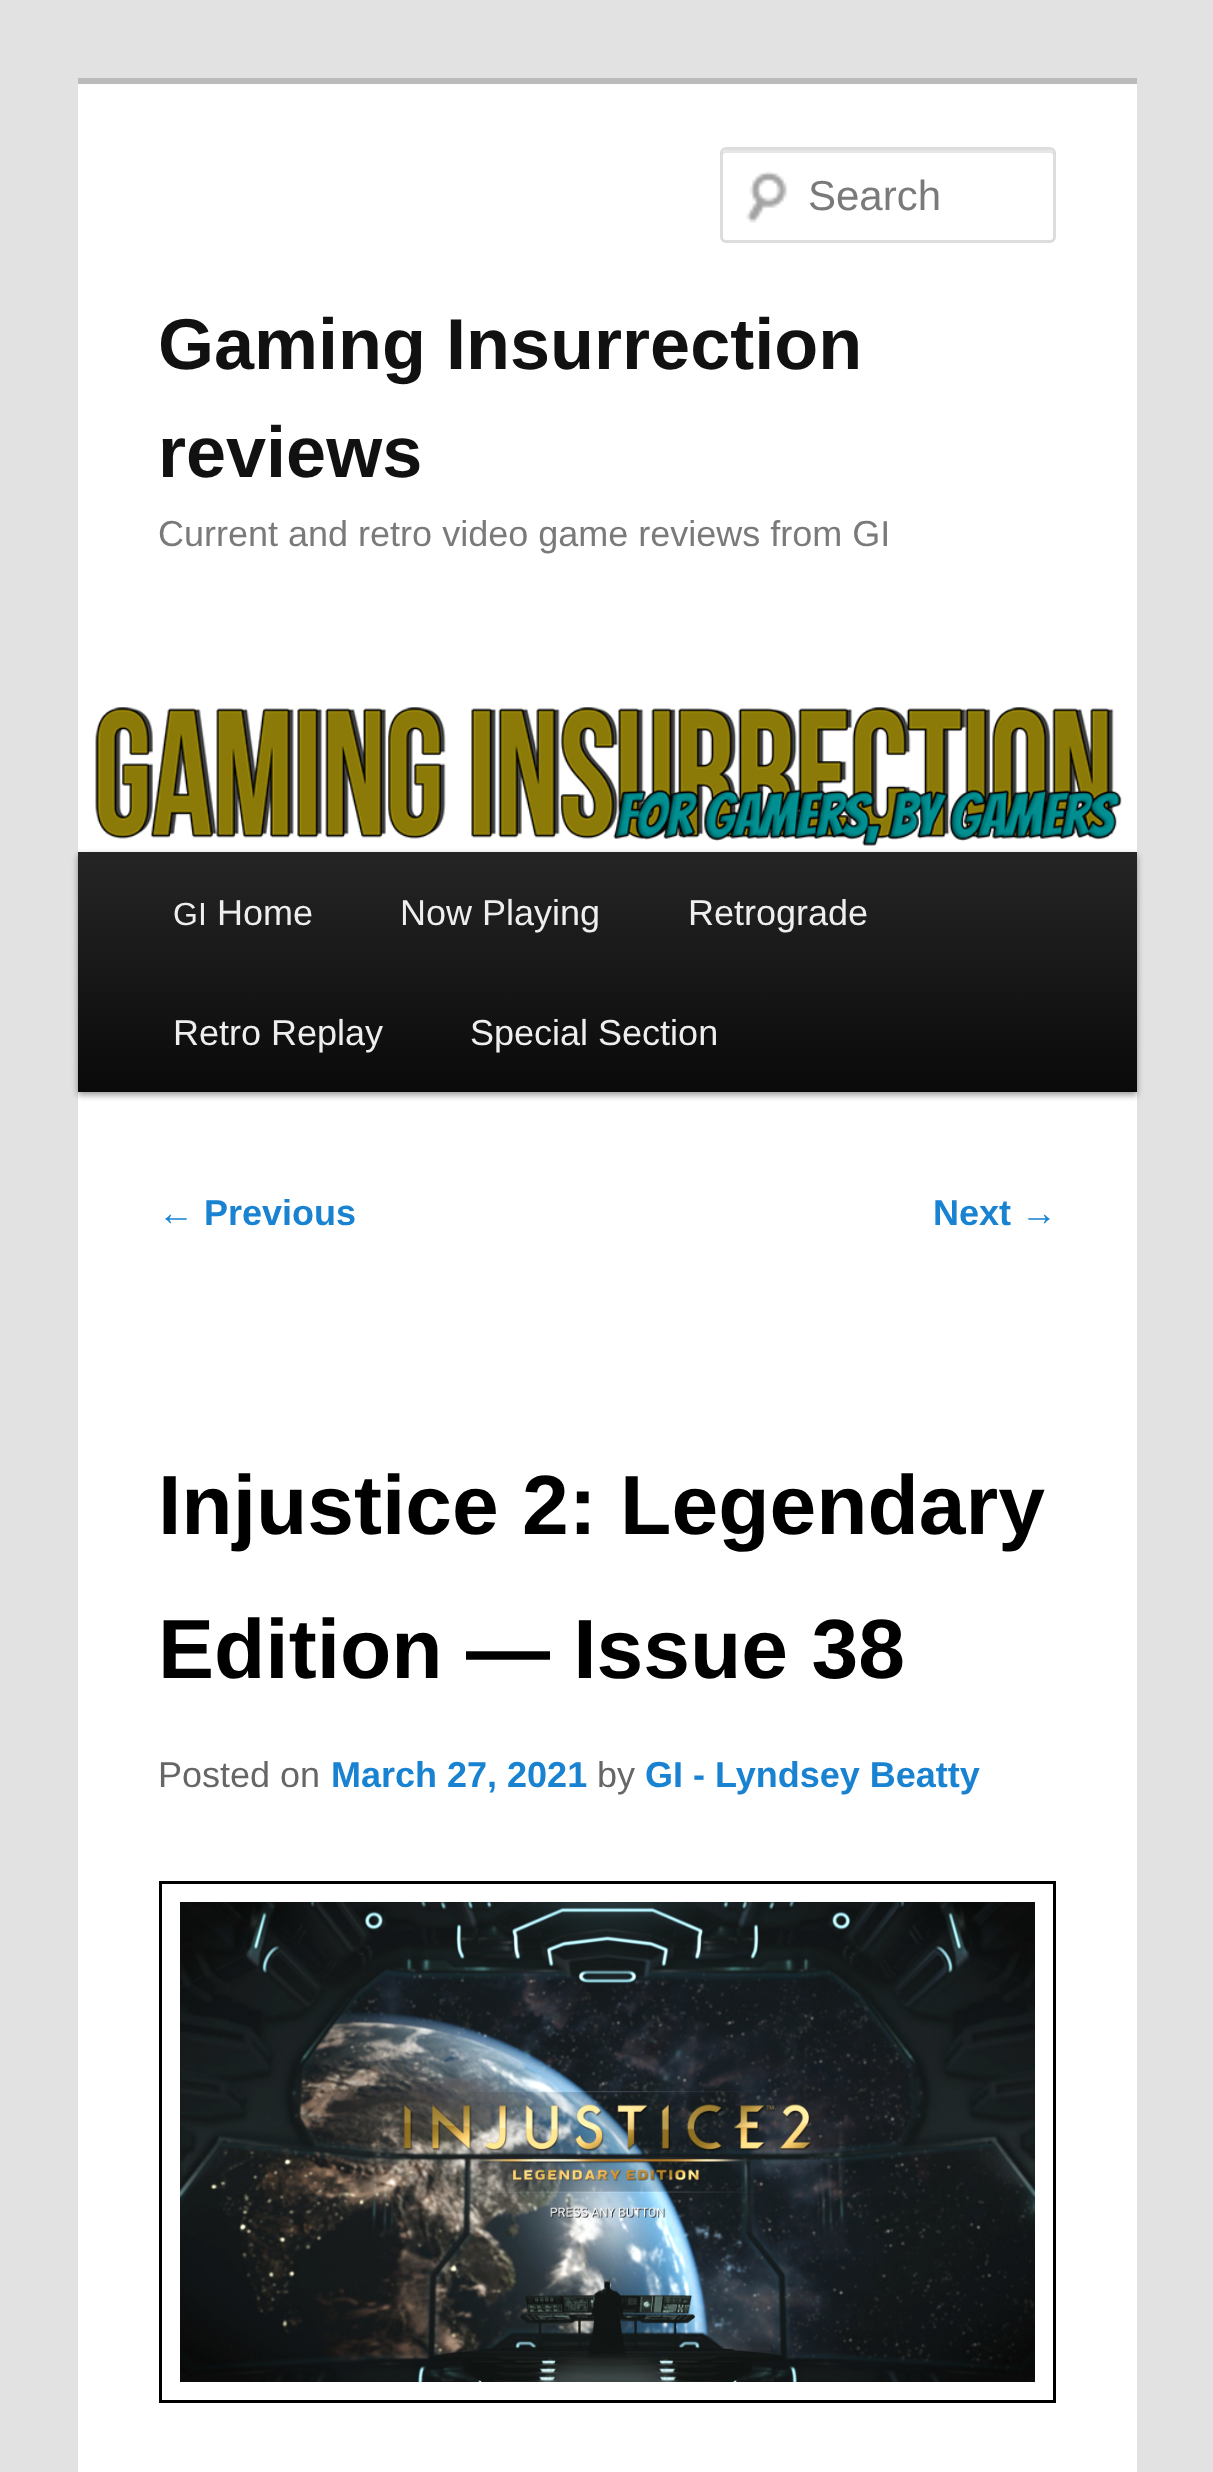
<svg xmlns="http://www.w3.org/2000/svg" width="1213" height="2472">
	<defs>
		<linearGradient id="g1" gradientUnits="userSpaceOnUse" x1="608" y1="852" x2="608" y2="1092"><stop offset="0" stop-color="#252525" /><stop offset="1" stop-color="#0A0A0A" /></linearGradient>
	</defs>
	<rect width="100%" height="100%" fill="#E2E2E2" />
	<rect x="78" y="84" width="1059" height="2388" fill="#FFFFFF" />
	<rect x="78" y="78" width="1059" height="6" fill="#BBBBBB" />
	<image x="746" y="171" width="41" height="52" href="assets/img1.png" />
	<path d="M726 153H1050C1052 153 1053 154 1053 156V153C1053 151 1052 150 1050 150H726C724 150 723 151 723 153V156C723 154 724 153 726 153Z" fill="#E6E6E6" />
	<rect x="721.5" y="148.5" width="333" height="93" rx="4.5" fill="none" stroke="#DDDDDD" stroke-width="3" />
	<text x="808" y="210" font-family="Liberation Sans" font-size="42" fill="#7A7A7A">Search</text>
	<g font-family="Liberation Sans" font-size="72" font-weight="700" fill="#111111">
		<text x="158" y="369">Gaming Insurrection</text>
		<text x="158" y="477">reviews</text>
	</g>
	<text x="158" y="546" font-family="Liberation Sans" font-size="36" fill="#7A7A7A">Current and retro video game reviews from GI</text>
	<rect x="78" y="855" width="1059" height="240" fill="#000000" fill-opacity="0.4" filter="blur(3px)" />
	<image x="95" y="707" width="1027" height="139" href="assets/img2.png" />
	<rect x="78" y="852" width="1059" height="240" fill="url(#g1)" />
	<text x="173" y="925" font-family="Liberation Sans" font-size="32" fill="#EEEEEE">GI</text>
	<g font-family="Liberation Sans" font-size="36" fill="#EEEEEE">
		<text x="217" y="925">Home</text>
		<text x="400" y="925">Now Playing</text>
		<text x="688" y="925">Retrograde</text>
		<text x="173" y="1045">Retro Replay</text>
		<text x="470" y="1045">Special Section</text>
	</g>
	<text x="158" y="1225" font-family="Liberation Sans" font-size="36" fill="#1982D1">←</text>
	<g font-family="Liberation Sans" font-size="36" font-weight="700" fill="#1982D1">
		<text x="204" y="1225">Previous</text>
		<text x="933" y="1225">Next</text>
	</g>
	<text x="1021" y="1225" font-family="Liberation Sans" font-size="36" fill="#1982D1">→</text>
	<g font-family="Liberation Sans" font-size="84" font-weight="700" fill="#000000">
		<text x="158" y="1534">Injustice 2: Legendary</text>
		<text x="158" y="1678">Edition — Issue 38</text>
	</g>
	<text x="158" y="1787" font-family="Liberation Sans" font-size="36" fill="#666666">Posted on</text>
	<text x="331" y="1787" font-family="Liberation Sans" font-size="36" font-weight="700" fill="#1982D1">March 27, 2021</text>
	<text x="597" y="1787" font-family="Liberation Sans" font-size="36" fill="#666666">by</text>
	<text x="645" y="1787" font-family="Liberation Sans" font-size="36" font-weight="700" fill="#1982D1">GI - Lyndsey Beatty</text>
	<rect x="160.5" y="1882.5" width="894" height="519" fill="none" stroke="#000000" stroke-width="3" />
	<image x="180" y="1902" width="855" height="480" href="assets/img3.png" />
</svg>
